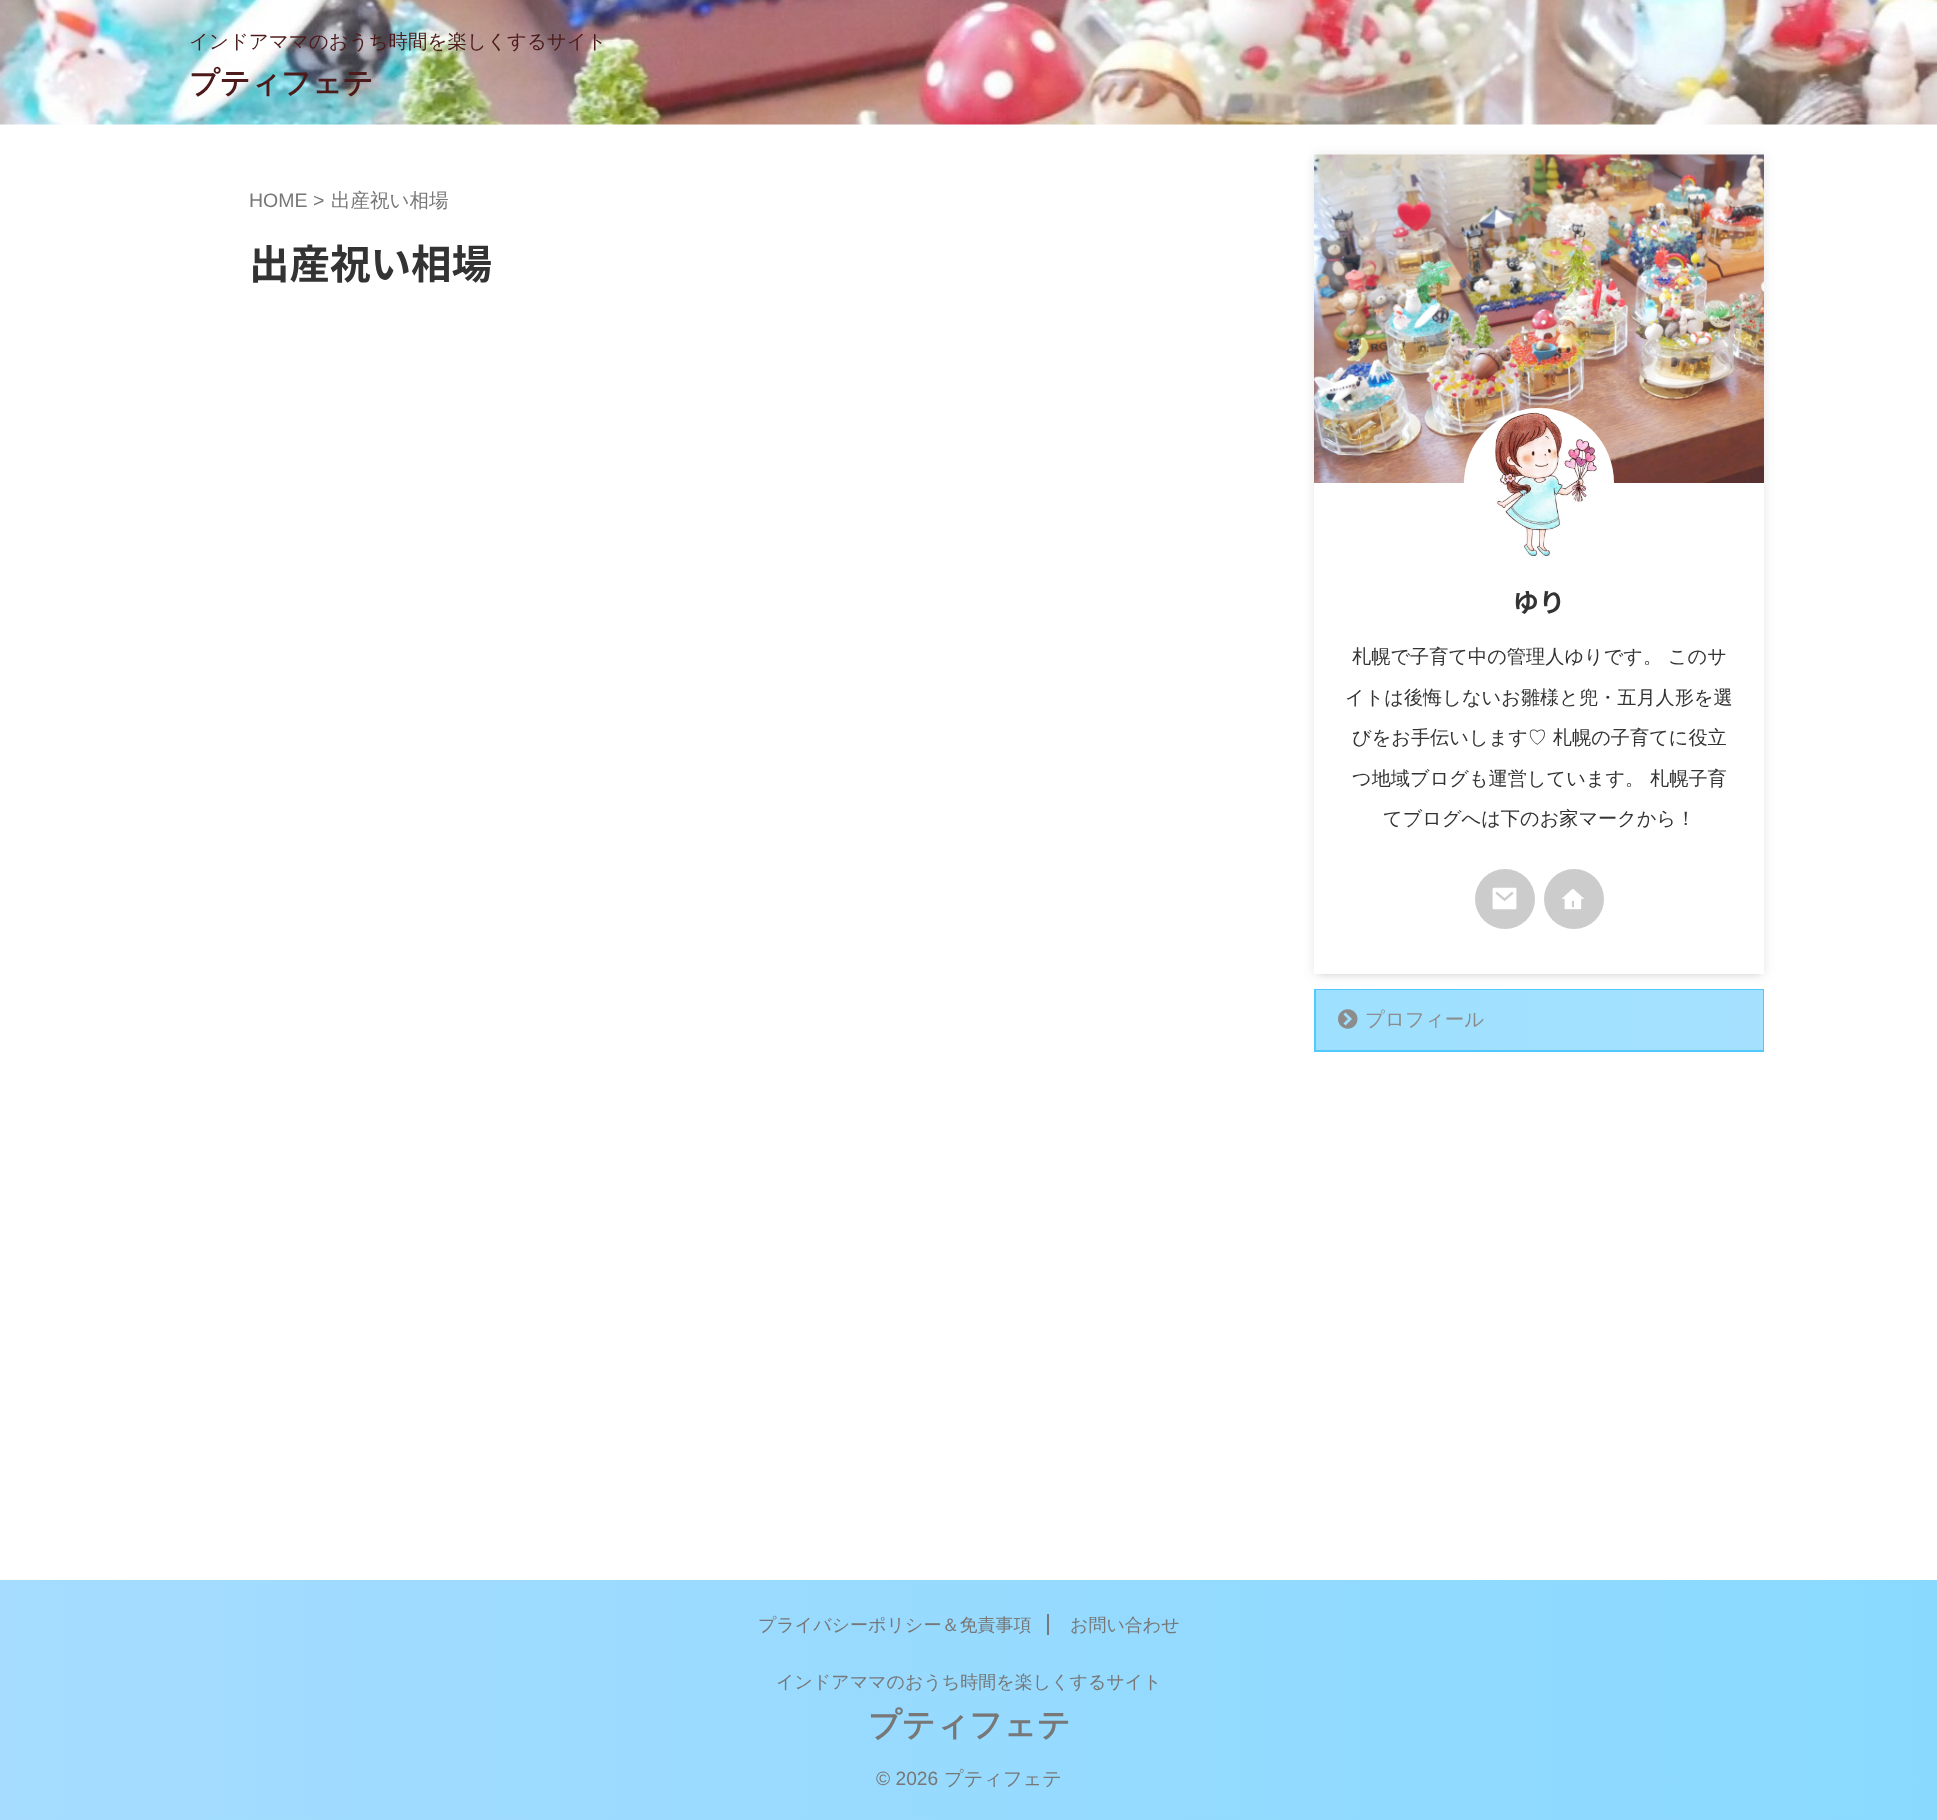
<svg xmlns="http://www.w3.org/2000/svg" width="1937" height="1820">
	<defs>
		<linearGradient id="g1" gradientUnits="userSpaceOnUse" x1="1763" y1="1020" x2="1316" y2="1020"><stop offset="0" stop-color="#A5E1FF" /><stop offset="1" stop-color="#9EE0FF" /></linearGradient>
		<linearGradient id="g2" gradientUnits="userSpaceOnUse" x1="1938" y1="1700" x2="0" y2="1700"><stop offset="0" stop-color="#89D9FF" /><stop offset="1" stop-color="#A5DCFF" /></linearGradient>
	</defs>
	<rect width="100%" height="100%" fill="#FFFFFF" />
	<image x="0" y="0" width="1937" height="125" href="assets/img1.png" />
	<text x="189" y="48" font-family="WenQuanYi Zen Hei" font-size="19.5" font-weight="500" fill="#4C1A1A">インドアママのおうち時間を楽しくするサイト</text>
	<text x="189" y="93" font-family="WenQuanYi Zen Hei" font-size="30" font-weight="700" fill="#4C1A1A">プティフェテ</text>
	<text x="249" y="207" font-family="Liberation Sans" font-size="19.5" fill="#777777">HOME &gt;</text>
	<text x="331" y="207" font-family="WenQuanYi Zen Hei" font-size="19.5" font-weight="500" fill="#777777">出産祝い相場</text>
	<text x="249" y="279" font-family="Noto Sans JP" font-size="40.5" font-weight="700" fill="#333333">出産祝い相場</text>
	<rect x="1320" y="167" width="438" height="807" fill="#000000" fill-opacity="0.1" filter="blur(3px)" />
	<rect x="1314" y="156" width="450" height="819" fill="#000000" fill-opacity="0.1" filter="blur(6px)" />
	<rect x="1314" y="483" width="450" height="491" fill="#FFFFFF" />
	<image x="1314" y="154" width="450" height="329" href="assets/img2.png" />
	<image x="1464" y="408" width="150" height="150" href="assets/img3.png" />
	<text x="1513" y="612" font-family="Noto Sans JP" font-size="26" font-weight="700" fill="#333333">ゆり</text>
	<g font-family="WenQuanYi Zen Hei" font-size="19.2" font-weight="500" fill="#333333">
		<text x="1352" y="663">札幌で子育て中の管理人ゆりです。 このサ</text>
		<text x="1345" y="704">イトは後悔しないお雛様と兜・五月人形を選</text>
		<text x="1352" y="744">びをお手伝いします♡ 札幌の子育てに役立</text>
		<text x="1352" y="785">つ地域ブログも運営しています。 札幌子育</text>
		<text x="1383" y="825">てブログへは下のお家マークから！</text>
	</g>
	<circle cx="1505" cy="899" r="30" fill="#CCCCCC" />
	<image x="1492" y="887" width="25" height="23" href="assets/img4.png" />
	<circle cx="1574" cy="899" r="30" fill="#CCCCCC" />
	<image x="1561" y="889" width="23" height="21" href="assets/img5.png" />
	<rect x="1315" y="990" width="448" height="61" fill="none" stroke="#51C8FF" stroke-width="2" />
	<rect x="1316" y="990" width="447" height="60" fill="url(#g1)" />
	<image x="1338" y="1009" width="20" height="20" href="assets/img6.png" />
	<text x="1365" y="1026" font-family="WenQuanYi Zen Hei" font-size="19.5" font-weight="500" fill="#8C8C8C">プロフィール</text>
	<rect x="0" y="1580" width="1937" height="240" fill="url(#g2)" />
	<text x="758" y="1631" font-family="WenQuanYi Zen Hei" font-size="18" font-weight="500" fill="#777777">プライバシーポリシー＆免責事項</text>
	<rect x="1047" y="1614" width="2" height="21" fill="#777777" />
	<g font-family="WenQuanYi Zen Hei" font-size="18" font-weight="500" fill="#777777">
		<text x="1070" y="1631">お問い合わせ</text>
		<text x="776" y="1688">インドアママのおうち時間を楽しくするサイト</text>
	</g>
	<text x="868" y="1736" font-family="WenQuanYi Zen Hei" font-size="33" font-weight="700" fill="#777777">プティフェテ</text>
	<text x="876" y="1785" font-family="Liberation Sans" font-size="19.2" fill="#777777">© 2026</text>
	<text x="944" y="1785" font-family="WenQuanYi Zen Hei" font-size="19.2" font-weight="500" fill="#777777">プティフェテ</text>
</svg>
